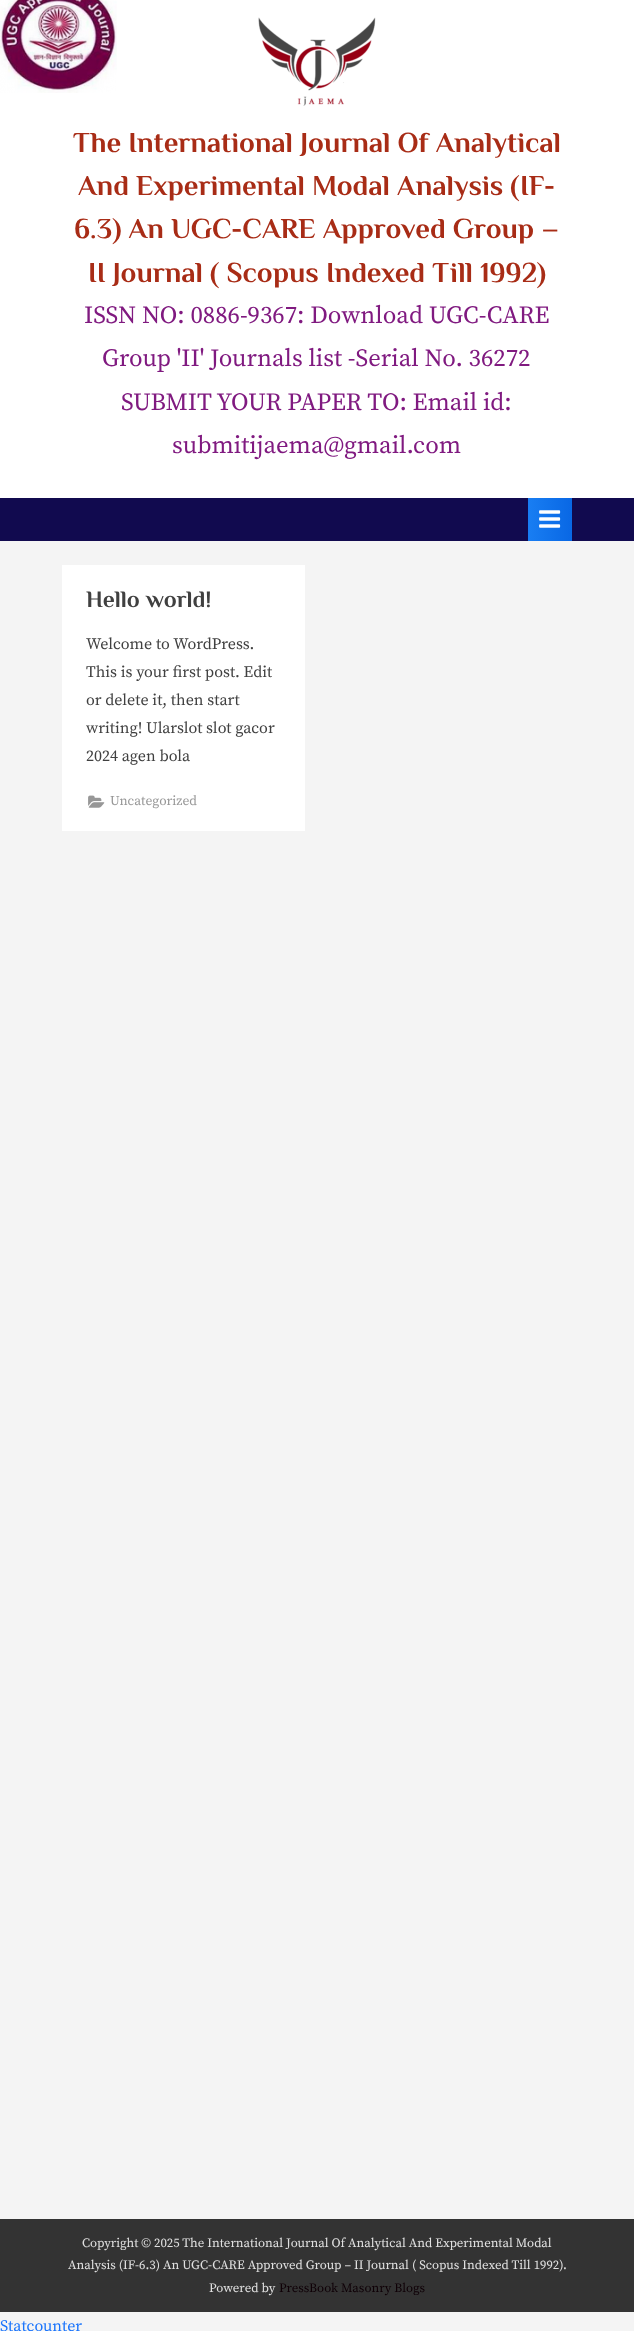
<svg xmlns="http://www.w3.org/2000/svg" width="634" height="2331">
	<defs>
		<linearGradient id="g1" gradientUnits="userSpaceOnUse" x1="450" y1="520" x2="530" y2="520"><stop offset="0" stop-color="#187DF2" /><stop offset="0.51" stop-color="#0968E5" /><stop offset="1" stop-color="#187DF2" /></linearGradient>
		<linearGradient id="g2" gradientUnits="userSpaceOnUse" x1="530" y1="520" x2="610" y2="520"><stop offset="0" stop-color="#187DF2" /><stop offset="0.51" stop-color="#0968E5" /><stop offset="1" stop-color="#187DF2" /></linearGradient>
	</defs>
	<rect width="100%" height="100%" fill="#F4F4F4" />
	<rect x="0" y="0" width="634" height="498" fill="#FFFFFF" />
	<image x="0" y="0" width="117" height="93" href="assets/img1.png" />
	<image x="258" y="17" width="118" height="89" href="assets/img2.png" />
	<g font-family="Philosopher" font-size="28.75" font-weight="700" fill="#A82C16">
		<text x="73" y="152">The International Journal Of Analytical</text>
		<text x="78" y="195">And Experimental Modal Analysis (IF-</text>
		<text x="74" y="238">6.3) An UGC-CARE Approved Group –</text>
		<text x="88" y="282">II Journal ( Scopus Indexed Till 1992)</text>
	</g>
	<g font-family="Source Serif Pro" font-size="24.75" fill="#801A80">
		<text x="84" y="323">ISSN NO: 0886-9367: Download UGC-CARE</text>
		<text x="102" y="366">Group 'II' Journals list -Serial No. 36272</text>
		<text x="121" y="410">SUBMIT YOUR PAPER TO: Email id:</text>
		<text x="172" y="453">submitijaema@gmail.com</text>
	</g>
	<rect x="0" y="498" width="634" height="43" fill="#110A4F" />
	<rect x="528" y="498" width="2" height="43" fill="url(#g1)" />
	<rect x="530" y="498" width="42" height="43" fill="url(#g2)" />
	<image x="539" y="510" width="22" height="18" href="assets/img3.png" />
	<rect x="62" y="565" width="243" height="266" fill="#FFFFFF" />
	<text x="86" y="607" font-family="Philosopher" font-size="23.5" font-weight="700" fill="#404040">Hello world!</text>
	<g font-family="Source Serif Pro" font-size="16" fill="#404040">
		<text x="86" y="649">Welcome to WordPress.</text>
		<text x="86" y="677">This is your first post. Edit</text>
		<text x="86" y="705">or delete it, then start</text>
		<text x="86" y="733">writing! Ularslot slot gacor</text>
		<text x="86" y="761">2024 agen bola</text>
	</g>
	<image x="88" y="795" width="17" height="13" href="assets/img4.png" />
	<text x="110" y="805" font-family="Source Serif Pro" font-size="13.5" fill="#979797">Uncategorized</text>
	<rect x="0" y="2219" width="634" height="93" fill="#333333" />
	<g font-family="Source Serif Pro" font-size="12.8" fill="#E1E1E1">
		<text x="82" y="2247">Copyright © 2025 The International Journal Of Analytical And Experimental Modal</text>
		<text x="68" y="2269">Analysis (IF-6.3) An UGC-CARE Approved Group – II Journal ( Scopus Indexed Till 1992).</text>
		<text x="209" y="2292">Powered by</text>
	</g>
	<text x="279" y="2292" font-family="Source Serif Pro" font-size="12.8" fill="#0F0107">PressBook Masonry Blogs</text>
	<text x="0" y="2331" font-family="Source Serif Pro" font-size="16" fill="#1974FC">Statcounter</text>
</svg>
